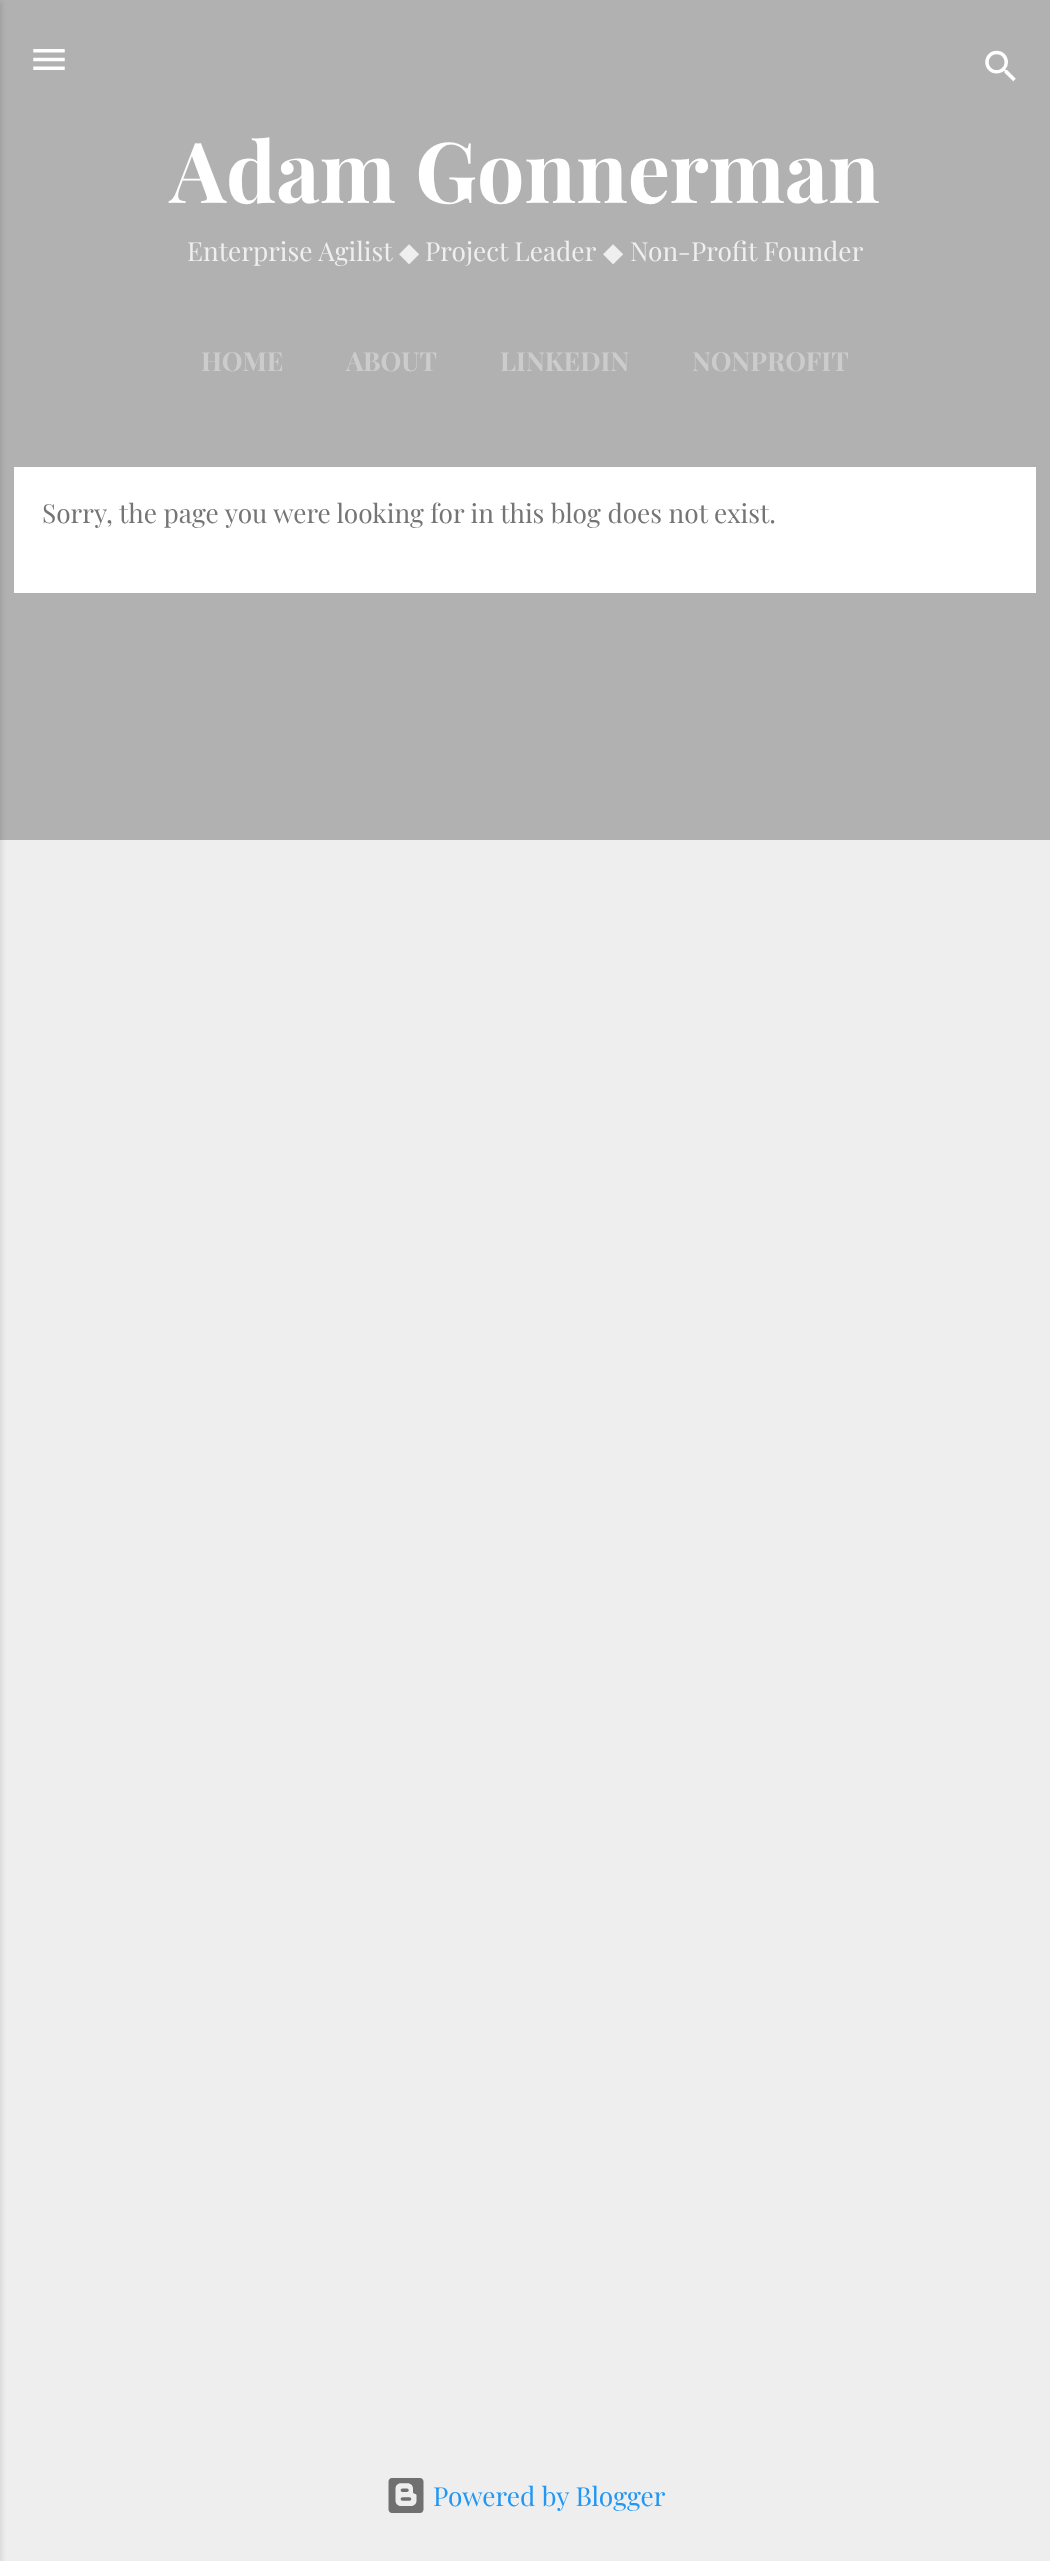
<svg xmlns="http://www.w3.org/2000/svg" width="1050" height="2561">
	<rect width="100%" height="100%" fill="#EEEEEE" />
	<rect x="0" y="0" width="1050" height="840" fill="#B1B1B1" />
	<rect x="-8" y="2" width="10" height="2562" fill="#000000" fill-opacity="0.1" filter="blur(2.5px)" />
	<image x="33" y="49" width="32" height="21" href="assets/img1.png" />
	<image x="985" y="50" width="31" height="32" href="assets/img2.png" />
	<text x="170" y="203" font-family="Playfair Display" font-size="84" font-weight="700" fill="#FFFFFF">Adam Gonnerman</text>
	<text x="187" y="261" font-family="Playfair Display" font-size="26.25" fill="#EFEFEF">Enterprise Agilist</text>
	<text x="399" y="261" font-family="DejaVu Sans" font-size="26.25" fill="#EFEFEF">◆</text>
	<text x="425" y="261" font-family="Playfair Display" font-size="26.25" fill="#EFEFEF">Project Leader</text>
	<text x="603" y="261" font-family="DejaVu Sans" font-size="26.25" fill="#EFEFEF">◆</text>
	<text x="630" y="261" font-family="Playfair Display" font-size="26.25" fill="#EFEFEF">Non-Profit Founder</text>
	<g font-family="Playfair Display" font-size="26.25" font-weight="700" fill="#CCCCCC">
		<text x="201" y="371">HOME</text>
		<text x="346" y="371">ABOUT</text>
		<text x="500" y="371">LINKEDIN</text>
		<text x="692" y="371">NONPROFIT</text>
	</g>
	<rect x="14" y="467" width="1022" height="126" fill="#FFFFFF" />
	<text x="42" y="523" font-family="Playfair Display" font-size="26.25" fill="#757575">Sorry, the page you were looking for in this blog does not exist.</text>
	<image x="388" y="2478" width="36" height="35" href="assets/img3.png" />
	<text x="433" y="2506" font-family="Playfair Display" font-size="26.25" fill="#2196F3">Powered by Blogger</text>
</svg>
